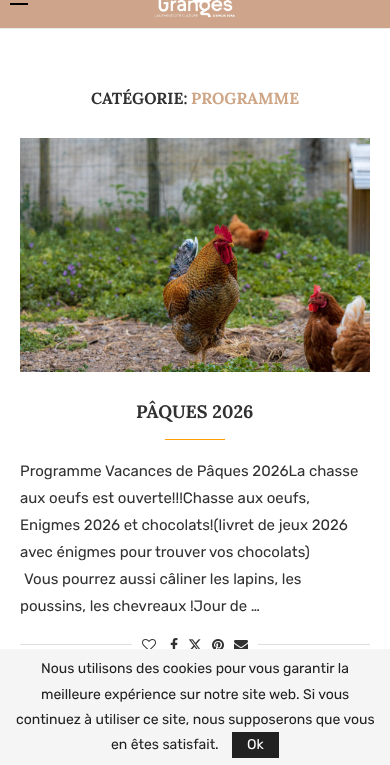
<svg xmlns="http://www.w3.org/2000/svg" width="390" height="765">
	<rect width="100%" height="100%" fill="#FFFFFF" />
	<rect x="0" y="0" width="390" height="28" fill="#CEA58B" />
	<rect x="0" y="28" width="390" height="1" fill="#ECECEC" />
	<rect x="10" y="3" width="18" height="2" fill="#000000" />
	<image x="154" y="0" width="81" height="18" href="assets/img1.png" />
	<text x="91" y="104" font-family="Lora" font-size="16" font-weight="700" fill="#313131">CATÉGORIE:</text>
	<text x="191" y="104" font-family="Lora" font-size="16" font-weight="700" fill="#CEA585">PROGRAMME</text>
	<image x="20" y="138" width="350" height="234" href="assets/img2.png" />
	<text x="136" y="418" font-family="Lora" font-size="18" font-weight="700" fill="#313131">PÂQUES 2026</text>
	<rect x="165" y="439" width="60" height="1" fill="#FF9E00" />
	<g font-family="Rubik" font-size="15" fill="#313131">
		<text x="20" y="476">Programme Vacances de Pâques 2026La chasse</text>
		<text x="20" y="503">aux oeufs est ouverte!!!Chasse aux oeufs,</text>
		<text x="20" y="530">Enigmes 2026 et chocolats!(livret de jeux 2026</text>
		<text x="20" y="557">avec énigmes pour trouver vos chocolats)</text>
		<text x="24" y="584">Vous pourrez aussi câliner les lapins, les</text>
		<text x="20" y="611">poussins, les chevreaux !Jour de …</text>
	</g>
	<rect x="20" y="644" width="350" height="1" fill="#DEDEDE" />
	<rect x="132" y="644" width="126" height="1" fill="#FFFFFF" />
	<image x="142" y="639" width="14" height="10" href="assets/img3.png" />
	<image x="170" y="638" width="8" height="11" href="assets/img4.png" />
	<image x="188" y="639" width="13" height="10" href="assets/img5.png" />
	<image x="212" y="639" width="12" height="10" href="assets/img6.png" />
	<image x="234" y="640" width="14" height="9" href="assets/img7.png" />
	<rect x="0" y="649" width="390" height="116" fill="#F5F5F5" />
	<g font-family="Rubik" font-size="14" fill="#212121">
		<text x="41" y="673">Nous utilisons des cookies pour vous garantir la</text>
		<text x="41" y="699">meilleure expérience sur notre site web. Si vous</text>
		<text x="16" y="724">continuez à utiliser ce site, nous supposerons que vous</text>
		<text x="111" y="749">en êtes satisfait.</text>
	</g>
	<rect x="232" y="732" width="47" height="26" fill="#212121" />
	<text x="247" y="749" font-family="Rubik" font-size="14" fill="#FFFFFF">Ok</text>
</svg>
